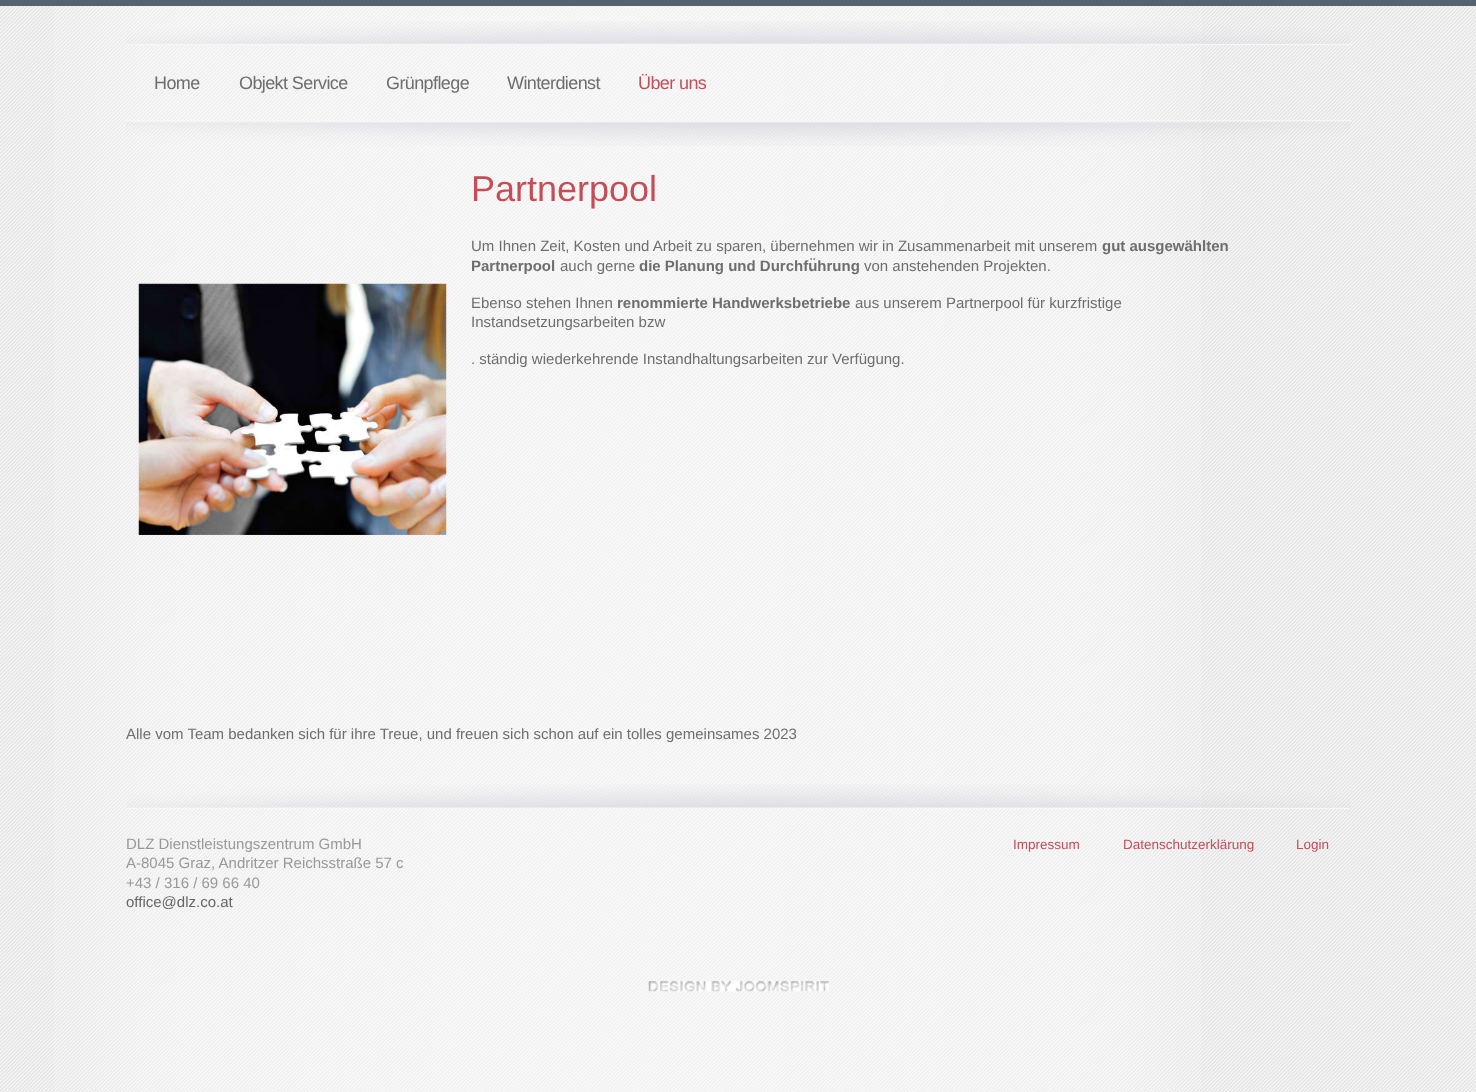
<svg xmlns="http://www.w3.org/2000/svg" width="1476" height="1092">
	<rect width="100%" height="100%" fill="#F7F7F7" />
	<image x="0" y="6" width="1476" height="1086" href="assets/img1.png" />
	<image x="54" y="6" width="1147" height="1086" href="assets/img2.png" />
	<rect x="0" y="0" width="1476" height="6" fill="#556270" />
	<image x="127" y="21" width="1224" height="23" href="assets/img3.png" />
	<rect x="126" y="44" width="1225" height="1" fill="#F6F6F6" />
	<image x="126" y="122" width="1225" height="24" href="assets/img4.png" />
	<rect x="126" y="120" width="1225" height="1" fill="#F6F6F6" />
	<g font-family="Liberation Sans" font-size="18" letter-spacing="-0.6" fill="#6E6E6E">
		<text x="154" y="89">Home</text>
		<text x="239" y="89">Objekt Service</text>
		<text x="386" y="89">Grünpflege</text>
		<text x="507" y="89">Winterdienst</text>
	</g>
	<text x="638" y="89" font-family="Liberation Sans" font-size="18" letter-spacing="-0.6" fill="#C44D58">Über uns</text>
	<image x="127" y="784" width="1224" height="24" href="assets/img5.png" />
	<image x="138" y="283" width="309" height="252" href="assets/img6.png" />
	<text x="471" y="201" font-family="Liberation Sans" font-size="36" fill="#C44D58">Partnerpool</text>
	<text x="471" y="251" font-family="Liberation Sans" font-size="15" fill="#6E6E6E">Um Ihnen Zeit, Kosten und Arbeit zu sparen, übernehmen wir in Zusammenarbeit mit unserem</text>
	<g font-family="Liberation Sans" font-size="15" font-weight="700" fill="#6E6E6E">
		<text x="1102" y="251">gut ausgewählten</text>
		<text x="471" y="271">Partnerpool</text>
	</g>
	<text x="560" y="271" font-family="Liberation Sans" font-size="15" fill="#6E6E6E">auch gerne</text>
	<text x="639" y="271" font-family="Liberation Sans" font-size="15" font-weight="700" fill="#6E6E6E">die Planung und Durchführung</text>
	<g font-family="Liberation Sans" font-size="15" fill="#6E6E6E">
		<text x="864" y="271">von anstehenden Projekten.</text>
		<text x="471" y="308">Ebenso stehen Ihnen</text>
	</g>
	<text x="617" y="308" font-family="Liberation Sans" font-size="15" font-weight="700" fill="#6E6E6E">renommierte Handwerksbetriebe</text>
	<g font-family="Liberation Sans" font-size="15" fill="#6E6E6E">
		<text x="855" y="308">aus unserem Partnerpool für kurzfristige</text>
		<text x="471" y="327">Instandsetzungsarbeiten bzw</text>
		<text x="471" y="364">. ständig wiederkehrende Instandhaltungsarbeiten zur Verfügung.</text>
		<text x="126" y="739">Alle vom Team bedanken sich für ihre Treue, und freuen sich schon auf ein tolles gemeinsames 2023</text>
	</g>
	<rect x="126" y="808" width="1225" height="1" fill="#F6F6F6" />
	<g font-family="Liberation Sans" font-size="15" fill="#999999">
		<text x="126" y="849">DLZ Dienstleistungszentrum GmbH</text>
		<text x="126" y="868">A-8045 Graz, Andritzer Reichsstraße 57 c</text>
		<text x="126" y="888">+43 / 316 / 69 66 40</text>
	</g>
	<text x="126" y="907" font-family="Liberation Sans" font-size="15" fill="#666666">office@dlz.co.at</text>
	<g font-family="Liberation Sans" font-size="13.5" fill="#C44D58">
		<text x="1013" y="849">Impressum</text>
		<text x="1123" y="849">Datenschutzerklärung</text>
		<text x="1296" y="849">Login</text>
	</g>
	<image x="648" y="981" width="181" height="11" href="assets/img7.png" />
</svg>
